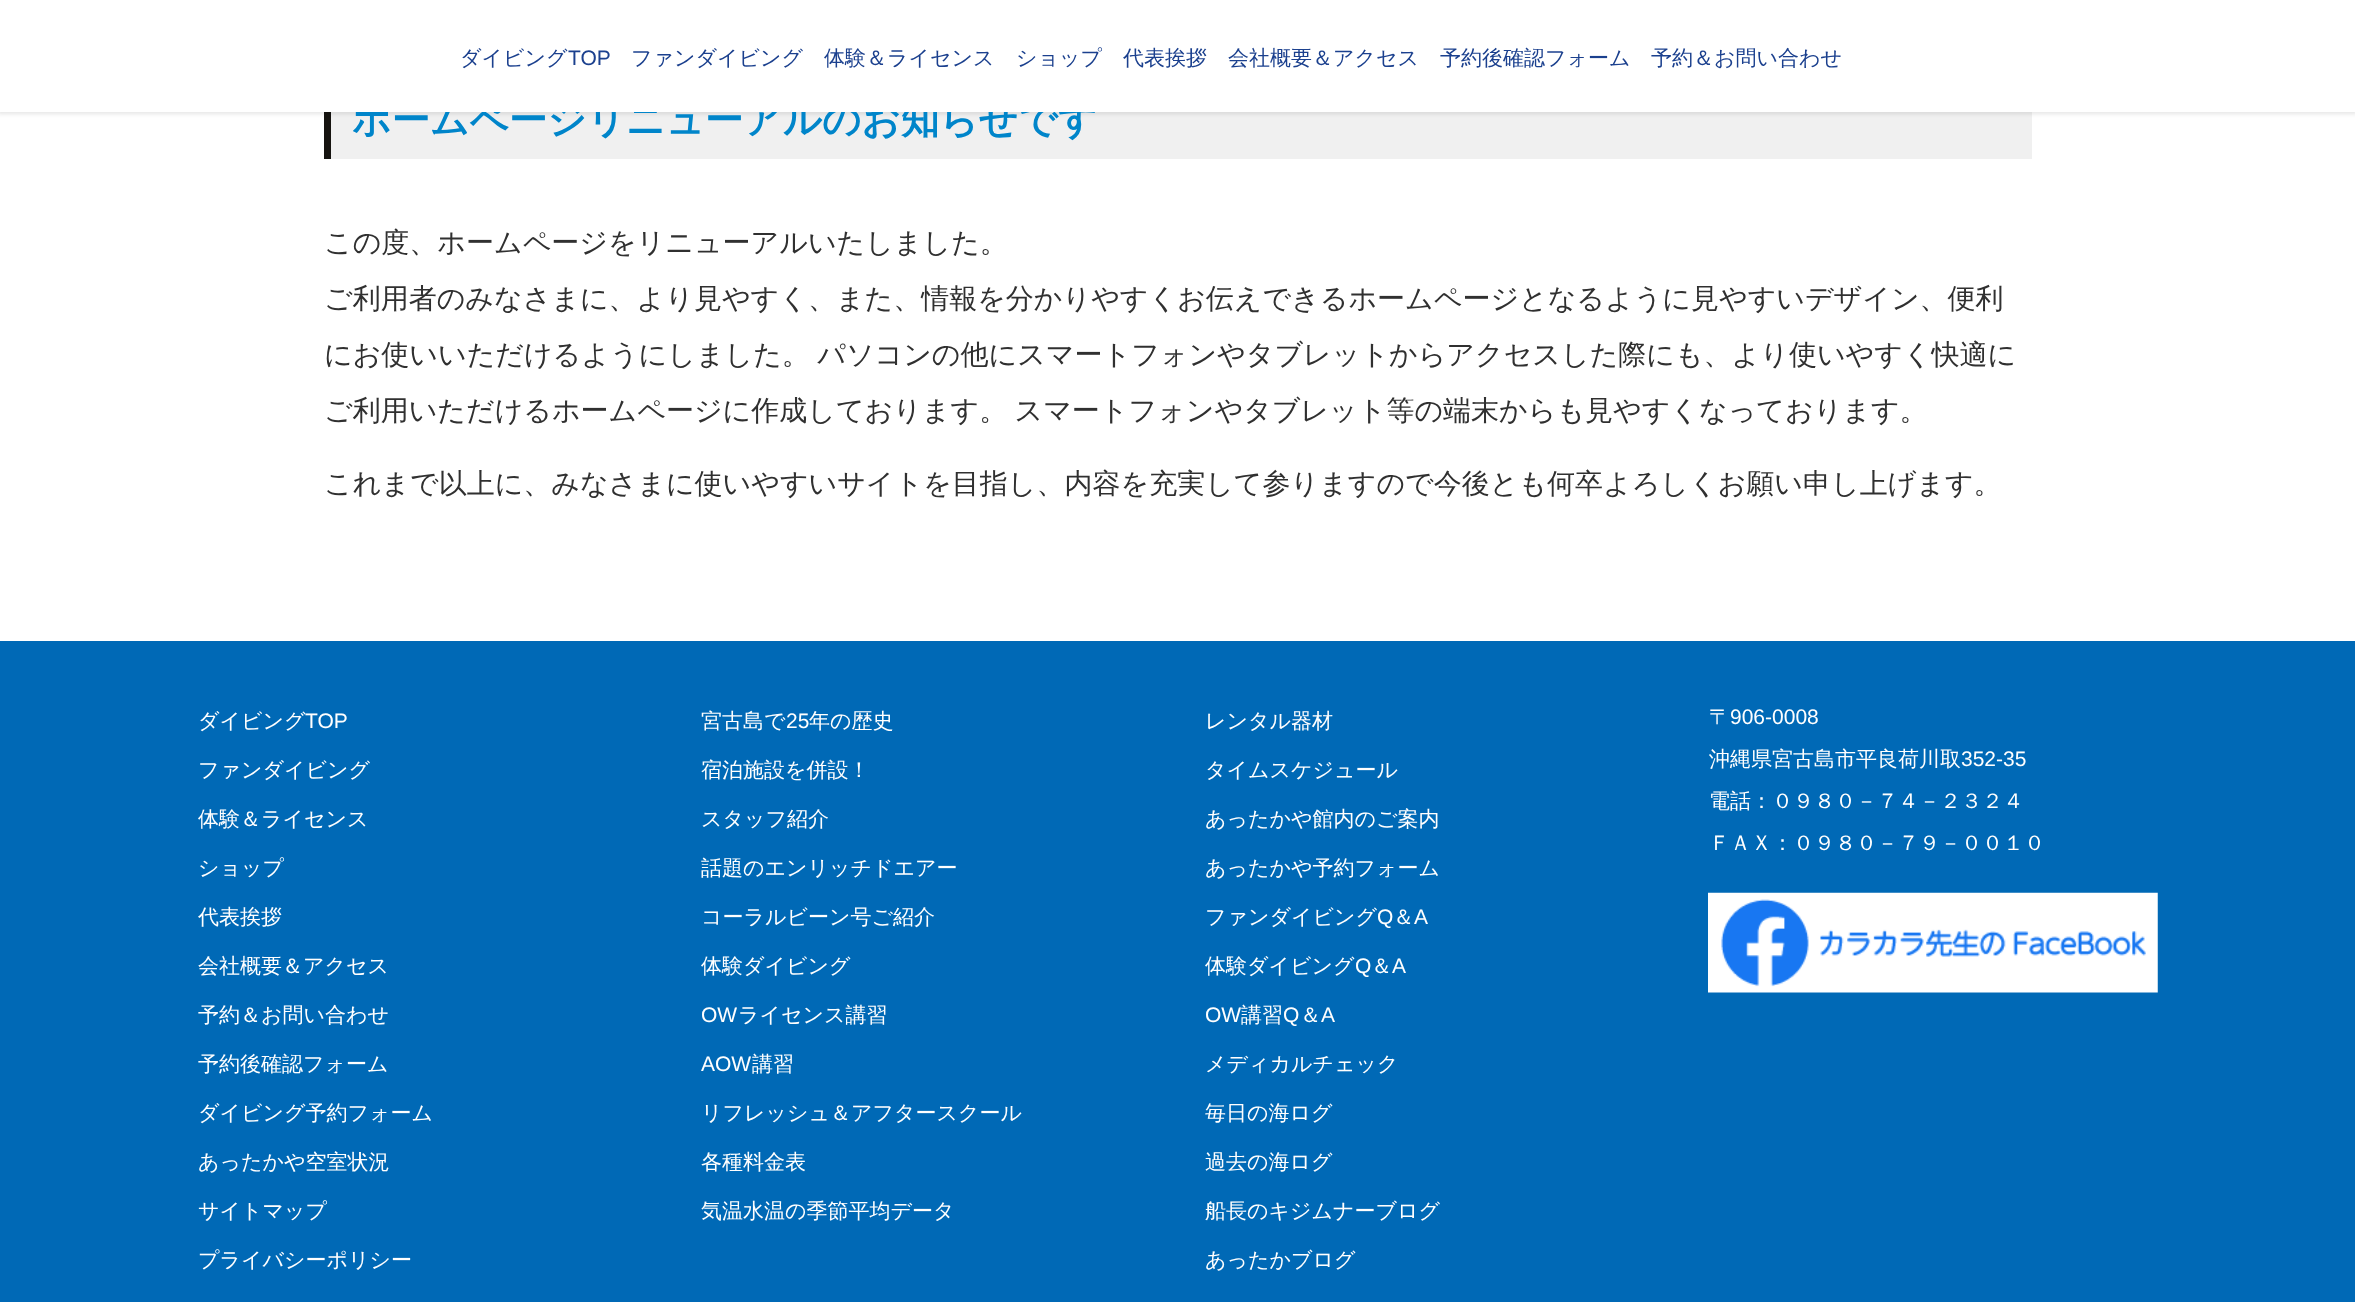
<svg xmlns="http://www.w3.org/2000/svg" width="2355" height="1302">
	<rect width="100%" height="100%" fill="#FFFFFF" />
	<rect x="331" y="112" width="1701" height="47" fill="#F0F0F0" />
	<rect x="324" y="112" width="7" height="47" fill="#161410" />
	<rect x="-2" y="-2" width="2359" height="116" fill="#000000" fill-opacity="0.1" filter="blur(2px)" />
	<text x="352" y="133" font-family="WenQuanYi Zen Hei" font-size="38.5" font-weight="700" fill="#0085CA">ホームページリニューアルのお知らせです</text>
	<rect x="0" y="0" width="2355" height="112" fill="#FFFFFF" />
	<text x="460" y="65" font-family="WenQuanYi Zen Hei" font-size="21" font-weight="500" fill="#1B408E">ダイビング</text>
	<text x="568" y="65" font-family="Liberation Sans" font-size="21" fill="#1B408E">TOP</text>
	<g font-family="WenQuanYi Zen Hei" font-size="21" font-weight="500" fill="#1B408E">
		<text x="631" y="65">ファンダイビング</text>
		<text x="824" y="65">体験＆ライセンス</text>
		<text x="1016" y="65">ショップ</text>
		<text x="1123" y="65">代表挨拶</text>
		<text x="1228" y="65">会社概要＆アクセス</text>
		<text x="1440" y="65">予約後確認フォーム</text>
		<text x="1651" y="65">予約＆お問い合わせ</text>
	</g>
	<g font-family="WenQuanYi Zen Hei" font-size="28" font-weight="500" fill="#303030">
		<text x="324" y="252">この度、ホームページをリニューアルいたしました。</text>
		<text x="324" y="308">ご利用者のみなさまに、より見やすく、また、情報を分かりやすくお伝えできるホームページとなるように見やすいデザイン、便利</text>
		<text x="324" y="364" word-spacing="-1">にお使いいただけるようにしました。 パソコンの他にスマートフォンやタブレットからアクセスした際にも、より使いやすく快適に</text>
		<text x="324" y="420" word-spacing="-1">ご利用いただけるホームページに作成しております。 スマートフォンやタブレット等の端末からも見やすくなっております。</text>
		<text x="324" y="493">これまで以上に、みなさまに使いやすいサイトを目指し、内容を充実して参りますので今後とも何卒よろしくお願い申し上げます。</text>
	</g>
	<rect x="0" y="641" width="2355" height="661" fill="#0069B6" />
	<text x="198" y="728" font-family="WenQuanYi Zen Hei" font-size="21" font-weight="500" fill="#FFFFFF">ダイビング</text>
	<text x="305" y="728" font-family="Liberation Sans" font-size="21" fill="#FFFFFF">TOP</text>
	<g font-family="WenQuanYi Zen Hei" font-size="21" font-weight="500" fill="#FFFFFF">
		<text x="198" y="777">ファンダイビング</text>
		<text x="198" y="826">体験＆ライセンス</text>
		<text x="198" y="875">ショップ</text>
		<text x="198" y="924">代表挨拶</text>
		<text x="198" y="973">会社概要＆アクセス</text>
		<text x="198" y="1022">予約＆お問い合わせ</text>
		<text x="198" y="1071">予約後確認フォーム</text>
		<text x="198" y="1120">ダイビング予約フォーム</text>
		<text x="198" y="1169">あったかや空室状況</text>
		<text x="198" y="1218">サイトマップ</text>
		<text x="198" y="1267">プライバシーポリシー</text>
		<text x="701" y="728">宮古島で</text>
	</g>
	<text x="786" y="728" font-family="Liberation Sans" font-size="21" fill="#FFFFFF">25</text>
	<g font-family="WenQuanYi Zen Hei" font-size="21" font-weight="500" fill="#FFFFFF">
		<text x="809" y="728">年の歴史</text>
		<text x="701" y="777">宿泊施設を併設！</text>
		<text x="701" y="826">スタッフ紹介</text>
		<text x="701" y="875">話題のエンリッチドエアー</text>
		<text x="701" y="924">コーラルビーン号ご紹介</text>
		<text x="701" y="973">体験ダイビング</text>
	</g>
	<text x="701" y="1022" font-family="Liberation Sans" font-size="21" fill="#FFFFFF">OW</text>
	<text x="738" y="1022" font-family="WenQuanYi Zen Hei" font-size="21" font-weight="500" fill="#FFFFFF">ライセンス講習</text>
	<text x="701" y="1071" font-family="Liberation Sans" font-size="21" fill="#FFFFFF">AOW</text>
	<g font-family="WenQuanYi Zen Hei" font-size="21" font-weight="500" fill="#FFFFFF">
		<text x="752" y="1071">講習</text>
		<text x="701" y="1120">リフレッシュ＆アフタースクール</text>
		<text x="701" y="1169">各種料金表</text>
		<text x="701" y="1218">気温水温の季節平均データ</text>
		<text x="1205" y="728">レンタル器材</text>
		<text x="1205" y="777">タイムスケジュール</text>
		<text x="1205" y="826">あったかや館内のご案内</text>
		<text x="1205" y="875">あったかや予約フォーム</text>
		<text x="1205" y="924">ファンダイビング</text>
	</g>
	<text x="1377" y="924" font-family="Liberation Sans" font-size="21" fill="#FFFFFF">Q</text>
	<text x="1393" y="924" font-family="WenQuanYi Zen Hei" font-size="21" font-weight="500" fill="#FFFFFF">＆</text>
	<text x="1414" y="924" font-family="Liberation Sans" font-size="21" fill="#FFFFFF">A</text>
	<text x="1205" y="973" font-family="WenQuanYi Zen Hei" font-size="21" font-weight="500" fill="#FFFFFF">体験ダイビング</text>
	<text x="1355" y="973" font-family="Liberation Sans" font-size="21" fill="#FFFFFF">Q</text>
	<text x="1371" y="973" font-family="WenQuanYi Zen Hei" font-size="21" font-weight="500" fill="#FFFFFF">＆</text>
	<g font-family="Liberation Sans" font-size="21" fill="#FFFFFF">
		<text x="1392" y="973">A</text>
		<text x="1205" y="1022">OW</text>
	</g>
	<text x="1241" y="1022" font-family="WenQuanYi Zen Hei" font-size="21" font-weight="500" fill="#FFFFFF">講習</text>
	<text x="1283" y="1022" font-family="Liberation Sans" font-size="21" fill="#FFFFFF">Q</text>
	<text x="1300" y="1022" font-family="WenQuanYi Zen Hei" font-size="21" font-weight="500" fill="#FFFFFF">＆</text>
	<text x="1321" y="1022" font-family="Liberation Sans" font-size="21" fill="#FFFFFF">A</text>
	<g font-family="WenQuanYi Zen Hei" font-size="21" font-weight="500" fill="#FFFFFF">
		<text x="1205" y="1071">メディカルチェック</text>
		<text x="1205" y="1120">毎日の海ログ</text>
		<text x="1205" y="1169">過去の海ログ</text>
		<text x="1205" y="1218">船長のキジムナーブログ</text>
		<text x="1205" y="1267">あったかブログ</text>
		<text x="1709" y="724">〒</text>
	</g>
	<text x="1730" y="724" font-family="Liberation Sans" font-size="21" fill="#FFFFFF">906-0008</text>
	<text x="1709" y="766" font-family="WenQuanYi Zen Hei" font-size="21" font-weight="500" fill="#FFFFFF">沖縄県宮古島市平良荷川取</text>
	<text x="1961" y="766" font-family="Liberation Sans" font-size="21" fill="#FFFFFF">352-35</text>
	<g font-family="WenQuanYi Zen Hei" font-size="21" font-weight="500" fill="#FFFFFF">
		<text x="1709" y="808">電話：０９８０－７４－２３２４</text>
		<text x="1709" y="850">ＦＡＸ：０９８０－７９－００１０</text>
	</g>
	<image x="1708" y="892" width="450" height="101" href="assets/img1.png" />
</svg>
